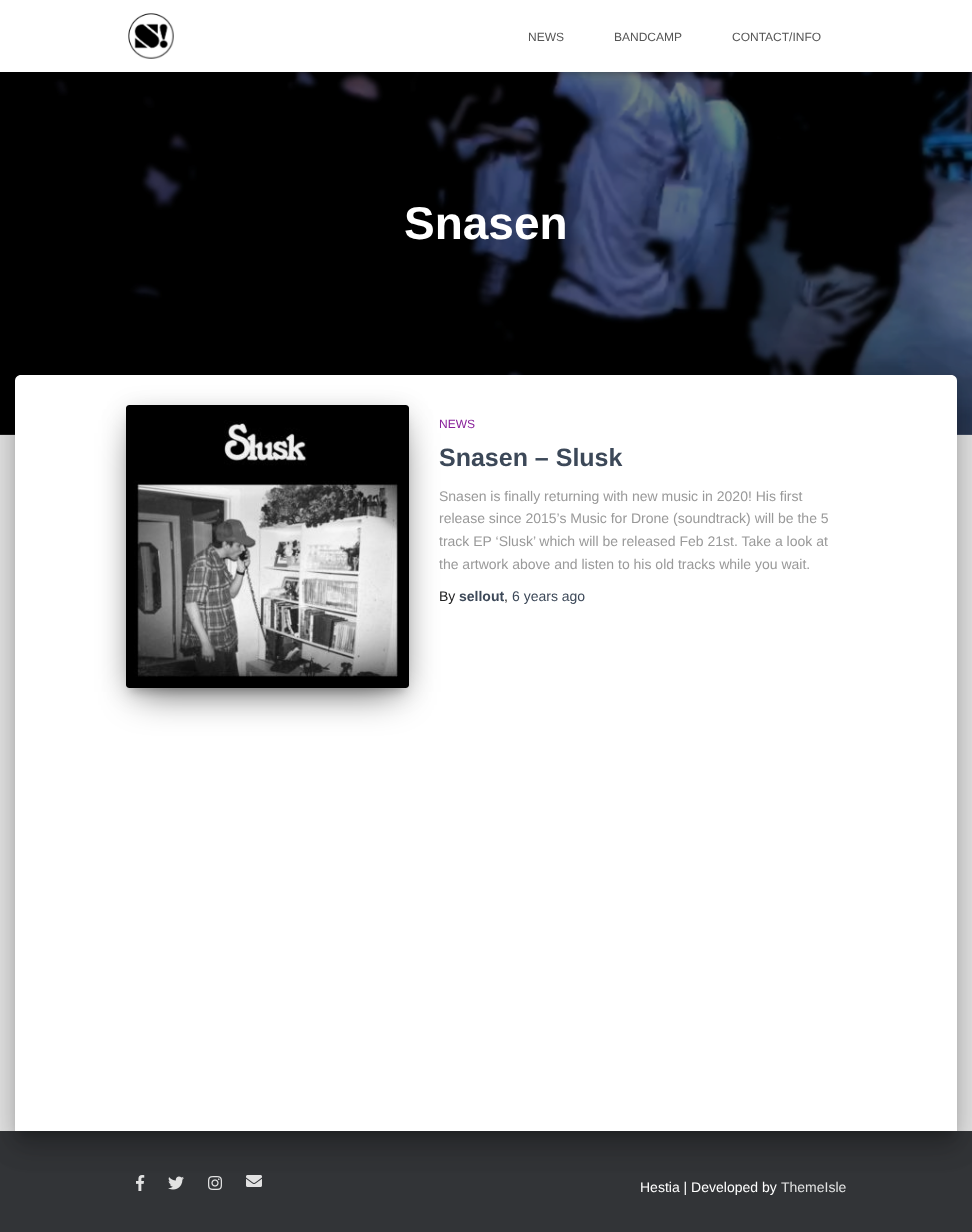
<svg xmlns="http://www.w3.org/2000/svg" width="972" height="1232">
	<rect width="100%" height="100%" fill="#E5E5E5" />
	<image x="0" y="72" width="972" height="363" href="assets/img2.png" />
	<rect x="2" y="6" width="968" height="68" fill="#000000" fill-opacity="0.1" filter="blur(2.5px)" />
	<rect x="0" y="1" width="972" height="72" fill="#000000" fill-opacity="0.12" filter="blur(5px)" />
	<rect x="6" y="7" width="960" height="60" fill="#000000" fill-opacity="0.42" filter="blur(5px)" />
	<rect x="0" y="0" width="972" height="72" fill="#FFFFFF" />
	<image x="128" y="13" width="46" height="46" href="assets/img1.png" />
	<g font-family="Liberation Sans" font-size="12" fill="#555555">
		<text x="528" y="41">NEWS</text>
		<text x="614" y="41">BANDCAMP</text>
		<text x="732" y="41">CONTACT/INFO</text>
	</g>
	<text x="404" y="239" font-family="Liberation Sans" font-size="46" font-weight="700" fill="#FFFFFF">Snasen</text>
	<rect x="0" y="1131" width="972" height="101" fill="#323437" />
	<rect x="20" y="388" width="932" height="746" rx="1" fill="#000000" fill-opacity="0.2" filter="blur(5px)" />
	<rect x="10" y="376" width="952" height="766" rx="11" fill="#000000" fill-opacity="0.12" filter="blur(15px)" />
	<rect x="13" y="389" width="946" height="760" rx="8" fill="#000000" fill-opacity="0.14" filter="blur(12px)" />
	<path d="M21 375H951C954.5 375 957 377.5 957 381V1131H15V381C15 377.5 17.5 375 21 375Z" fill="#FFFFFF" />
	<rect x="131" y="418" width="273" height="273" fill="#000000" fill-opacity="0.2" filter="blur(5px)" />
	<rect x="126" y="409" width="283" height="283" rx="3" fill="#000000" fill-opacity="0.12" filter="blur(12.5px)" />
	<rect x="138" y="433" width="259" height="259" fill="#000000" fill-opacity="0.56" filter="blur(19px)" />
	<image x="126" y="405" width="283" height="283" href="assets/img3.png" />
	<text x="439" y="428" font-family="Liberation Sans" font-size="12" fill="#89229B">NEWS</text>
	<text x="439" y="466" font-family="Liberation Sans" font-size="25" font-weight="700" fill="#3C4858">Snasen – Slusk</text>
	<g font-family="Liberation Sans" font-size="14" fill="#999999">
		<text x="439" y="501">Snasen is finally returning with new music in 2020! His first</text>
		<text x="439" y="523">release since 2015’s Music for Drone (soundtrack) will be the 5</text>
		<text x="439" y="546">track EP ‘Slusk’ which will be released Feb 21st. Take a look at</text>
		<text x="439" y="569">the artwork above and listen to his old tracks while you wait.</text>
	</g>
	<text x="439" y="601" font-family="Liberation Sans" font-size="14" fill="#212121">By</text>
	<text x="459" y="601" font-family="Liberation Sans" font-size="14" font-weight="700" fill="#3C4858">sellout</text>
	<text x="504" y="601" font-family="Liberation Sans" font-size="14" fill="#212121">,</text>
	<text x="512" y="601" font-family="Liberation Sans" font-size="14" fill="#3C4858">6 years ago</text>
	<image x="136" y="1175" width="9" height="16" href="assets/img4.png" />
	<image x="168" y="1176" width="16" height="14" href="assets/img5.png" />
	<image x="208" y="1176" width="14" height="14" href="assets/img6.png" />
	<image x="246" y="1175" width="16" height="12" href="assets/img7.png" />
	<text x="640" y="1192" font-family="Liberation Sans" font-size="14" fill="#FFFFFF">Hestia | Developed by</text>
	<text x="781" y="1192" font-family="Liberation Sans" font-size="14" fill="#E2E3E3">ThemeIsle</text>
</svg>
